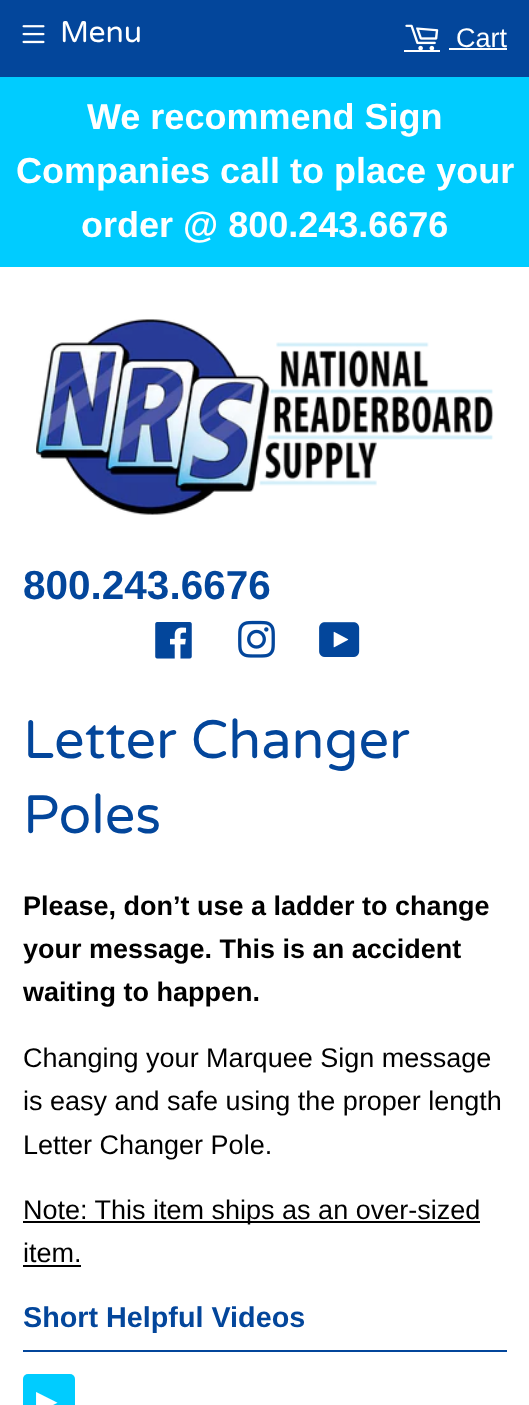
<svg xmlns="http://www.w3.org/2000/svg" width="529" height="1405">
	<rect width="100%" height="100%" fill="#FFFFFF" />
	<rect x="0" y="0" width="529" height="77" fill="#03469B" />
	<image x="22" y="25" width="23" height="19" href="assets/img1.png" />
	<text x="60" y="42" font-family="Varela Round" font-size="30" fill="#FFFFFF">Menu</text>
	<image x="405" y="24" width="34" height="26" href="assets/img2.png" />
	<text x="456" y="47" font-family="Liberation Sans" font-size="27" fill="#FFFFFF">Cart</text>
	<rect x="449" y="48" width="58" height="2" fill="#FFFFFF" />
	<rect x="404" y="50" width="36" height="2" fill="#FFFFFF" />
	<rect x="0" y="77" width="529" height="190" fill="#00CCFF" />
	<g font-family="Liberation Sans" font-size="36" font-weight="700" fill="#FFFFFF">
		<text x="87" y="129">We recommend Sign</text>
		<text x="16" y="183">Companies call to place your</text>
		<text x="81" y="237">order @ 800.243.6676</text>
	</g>
	<image x="36" y="319" width="458" height="196" href="assets/img3.png" />
	<text x="23" y="599" font-family="Liberation Sans" font-size="40.5" font-weight="700" fill="#03469B">800.243.6676</text>
	<image x="155" y="622" width="37" height="37" href="assets/img4.png" />
	<image x="238" y="620" width="37" height="38" href="assets/img5.png" />
	<image x="319" y="622" width="41" height="35" href="assets/img6.png" />
	<g font-family="Varela Round" font-size="54" fill="#03469B">
		<text x="23" y="758">Letter Changer</text>
		<text x="23" y="833">Poles</text>
	</g>
	<g font-family="Liberation Sans" font-size="27" font-weight="700" fill="#000000">
		<text x="23" y="915">Please, don’t use a ladder to change</text>
		<text x="23" y="958">your message. This is an accident</text>
		<text x="23" y="1001">waiting to happen.</text>
	</g>
	<g font-family="Liberation Sans" font-size="27" fill="#000000">
		<text x="23" y="1067">Changing your Marquee Sign message</text>
		<text x="23" y="1110">is easy and safe using the proper length</text>
		<text x="23" y="1154">Letter Changer Pole.</text>
	</g>
	<rect x="23" y="1221" width="457" height="2" fill="#000000" />
	<g font-family="Liberation Sans" font-size="27" fill="#000000">
		<text x="23" y="1219">Note: This item ships as an over-sized</text>
		<text x="23" y="1262">item.</text>
	</g>
	<rect x="23" y="1265" width="58" height="2" fill="#000000" />
	<rect x="23" y="1350" width="484" height="2" fill="#03469B" />
	<text x="23" y="1327" font-family="Liberation Sans" font-size="28.75" font-weight="700" fill="#03469B">Short Helpful Videos</text>
	<rect x="23" y="1374" width="52" height="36" rx="5" fill="#00CCFF" />
	<text x="36" y="1410" font-family="DejaVu Sans" font-size="28" fill="#FFFFFF">▶</text>
</svg>
